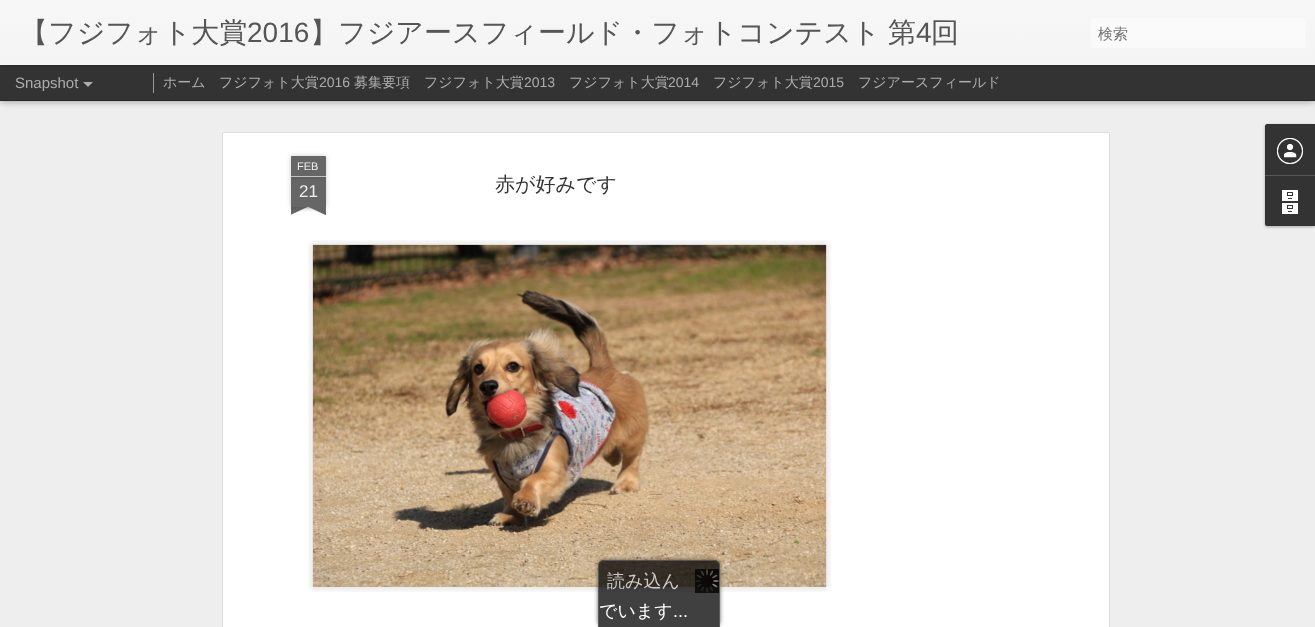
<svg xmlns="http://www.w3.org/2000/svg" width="1315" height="627">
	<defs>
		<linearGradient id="g1" gradientUnits="userSpaceOnUse" x1="0" y1="0" x2="0" y2="65"><stop offset="0" stop-color="#F7F7F7" /><stop offset="1" stop-color="#F4F4F4" /></linearGradient>
		<clipPath id="clip1"><rect x="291" y="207" width="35" height="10" /></clipPath>
		<clipPath id="clip2"><rect x="291" y="207" width="35" height="10" /></clipPath>
		<clipPath id="clip3"><path d="M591 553H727V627H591ZM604 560H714C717.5 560 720 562.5 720 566V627H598V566C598 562.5 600.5 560 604 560Z" clip-rule="evenodd" /></clipPath>
	</defs>
	<rect width="100%" height="100%" fill="#333333" />
	<rect x="0" y="101" width="1315" height="526" fill="#EEEEEE" />
	<rect x="0" y="65" width="1315" height="35" fill="#000000" fill-opacity="0.5" filter="blur(4px)" />
	<rect x="0" y="65" width="1315" height="35" fill="#333333" />
	<rect x="153" y="73" width="1" height="20" fill="#999999" />
	<rect x="0" y="0" width="1315" height="65" fill="#000000" fill-opacity="0.3" filter="blur(2.5px)" />
	<rect x="0" y="0" width="1315" height="65" fill="url(#g1)" />
	<text x="20" y="42" font-family="WenQuanYi Zen Hei" font-size="28" font-weight="500" fill="#555555">【フジフォト大賞</text>
	<text x="247" y="42" font-family="Liberation Sans" font-size="28" fill="#555555">2016</text>
	<text x="310" y="42" word-spacing="-1" font-family="WenQuanYi Zen Hei" font-size="28" font-weight="500" fill="#555555">】フジアースフィールド・フォトコンテスト 第</text>
	<text x="916" y="42" font-family="Liberation Sans" font-size="28" fill="#555555">4</text>
	<text x="931" y="42" font-family="WenQuanYi Zen Hei" font-size="28" font-weight="500" fill="#555555">回</text>
	<rect x="1091" y="18" width="214" height="30" rx="3" fill="#FAFAFA" />
	<text x="1098" y="39" font-family="WenQuanYi Zen Hei" font-size="15" font-weight="500" fill="#757575">検索</text>
	<text x="15" y="88" font-family="Liberation Sans" font-size="15" fill="#ADADAD">Snapshot</text>
	<path d="M83 82H93L88 87Z" fill="#ADADAD" />
	<g font-family="WenQuanYi Zen Hei" font-size="14" font-weight="500" fill="#ADADAD">
		<text x="163" y="87">ホーム</text>
		<text x="219" y="87">フジフォト大賞</text>
	</g>
	<text x="319" y="87" font-family="Liberation Sans" font-size="14" fill="#ADADAD">2016</text>
	<g font-family="WenQuanYi Zen Hei" font-size="14" font-weight="500" fill="#ADADAD">
		<text x="354" y="87">募集要項</text>
		<text x="424" y="87">フジフォト大賞</text>
	</g>
	<text x="524" y="87" font-family="Liberation Sans" font-size="14" fill="#ADADAD">2013</text>
	<text x="569" y="87" font-family="WenQuanYi Zen Hei" font-size="14" font-weight="500" fill="#ADADAD">フジフォト大賞</text>
	<text x="668" y="87" font-family="Liberation Sans" font-size="14" fill="#ADADAD">2014</text>
	<text x="713" y="87" font-family="WenQuanYi Zen Hei" font-size="14" font-weight="500" fill="#ADADAD">フジフォト大賞</text>
	<text x="813" y="87" font-family="Liberation Sans" font-size="14" fill="#ADADAD">2015</text>
	<text x="858" y="87" font-family="WenQuanYi Zen Hei" font-size="14" font-weight="500" fill="#ADADAD">フジアースフィールド</text>
	<rect x="221" y="131" width="890" height="496" fill="#FFFFFF" />
	<image x="221" y="131" width="890" height="496" href="assets/img1.png" />
	<rect x="291" y="177" width="35" height="30" fill="#000000" fill-opacity="0.2" filter="blur(2.5px)" />
	<rect x="291" y="177" width="35" height="30" fill="#666666" />
	<rect x="291" y="156" width="35" height="21" rx="1" fill="#000000" fill-opacity="0.2" filter="blur(2.5px)" />
	<path d="M292 156H325C325.5 156 326 156.5 326 157V177H291V157C291 156.5 291.5 156 292 156Z" fill="#666666" />
	<rect x="291" y="176" width="35" height="1" fill="#C2C2C2" />
	<text x="297" y="170" font-family="Liberation Sans" font-size="11" fill="#EEEEEE">FEB</text>
	<text x="299" y="197" font-family="Liberation Sans" font-size="17" fill="#EEEEEE">21</text>
	<g clip-path="url(#clip1)">
		<rect x="282" y="197" width="50" height="10" fill="#000000" fill-opacity="0.2" filter="blur(2.5px)" />
	</g>
	<g clip-path="url(#clip2)">
		<path d="M282 208L327 187L331 196L286 217Z" fill="#666666" />
	</g>
	<g clip-path="url(#clip1)">
		<rect x="285" y="197" width="50" height="10" fill="#000000" fill-opacity="0.2" filter="blur(2.5px)" />
	</g>
	<g clip-path="url(#clip2)">
		<path d="M289 187L334 208L330 217L285 196Z" fill="#666666" />
	</g>
	<text x="495" y="191" font-family="WenQuanYi Zen Hei" font-size="20" font-weight="500" fill="#333333">赤が好みです</text>
	<image x="308" y="240" width="523" height="352" href="assets/img2.png" />
	<image x="312" y="244" width="515" height="343" href="assets/img3.png" />
	<rect x="1265" y="125" width="50" height="102" rx="2" fill="#000000" fill-opacity="0.3" filter="blur(1.5px)" />
	<path d="M1267 124H1315V175H1265V126C1265 125 1266 124 1267 124Z" fill="#333333" />
	<image x="1277" y="138" width="26" height="26" href="assets/img4.png" />
	<path d="M1265 175H1315V226H1267C1266 226 1265 225 1265 224Z" fill="#333333" />
	<rect x="1265" y="175" width="50" height="1" fill="#585858" />
	<image x="1282" y="190" width="16" height="24" href="assets/img5.png" />
	<g clip-path="url(#clip3)">
		<rect x="598" y="560" width="122" height="67" rx="6" fill="#333333" fill-opacity="0.75" filter="blur(2px)" />
	</g>
	<path d="M604 560H714C717.5 560 720 562.5 720 566V627H598V566C598 562.5 600.5 560 604 560Z" fill="#000000" fill-opacity="0.75" />
	<path d="M604 560H714C717 560 720 563 720 566V627H598V566C598 563 601 560 604 560ZM604 561H714C717 561 719 563 719 566V627H599V566C599 563 601 561 604 561Z" fill="#666666" fill-opacity="0.75" fill-rule="evenodd" />
	<image x="695" y="569" width="24" height="24" href="assets/img6.png" />
	<text x="607" y="587" font-family="WenQuanYi Zen Hei" font-size="18" font-weight="500" fill="#CCCBCA">読み込ん</text>
	<text x="599" y="617" font-family="WenQuanYi Zen Hei" font-size="18" font-weight="500" fill="#FFFFFF">でいます</text>
	<text x="673" y="617" font-family="Liberation Sans" font-size="18" fill="#FFFFFF">...</text>
</svg>
